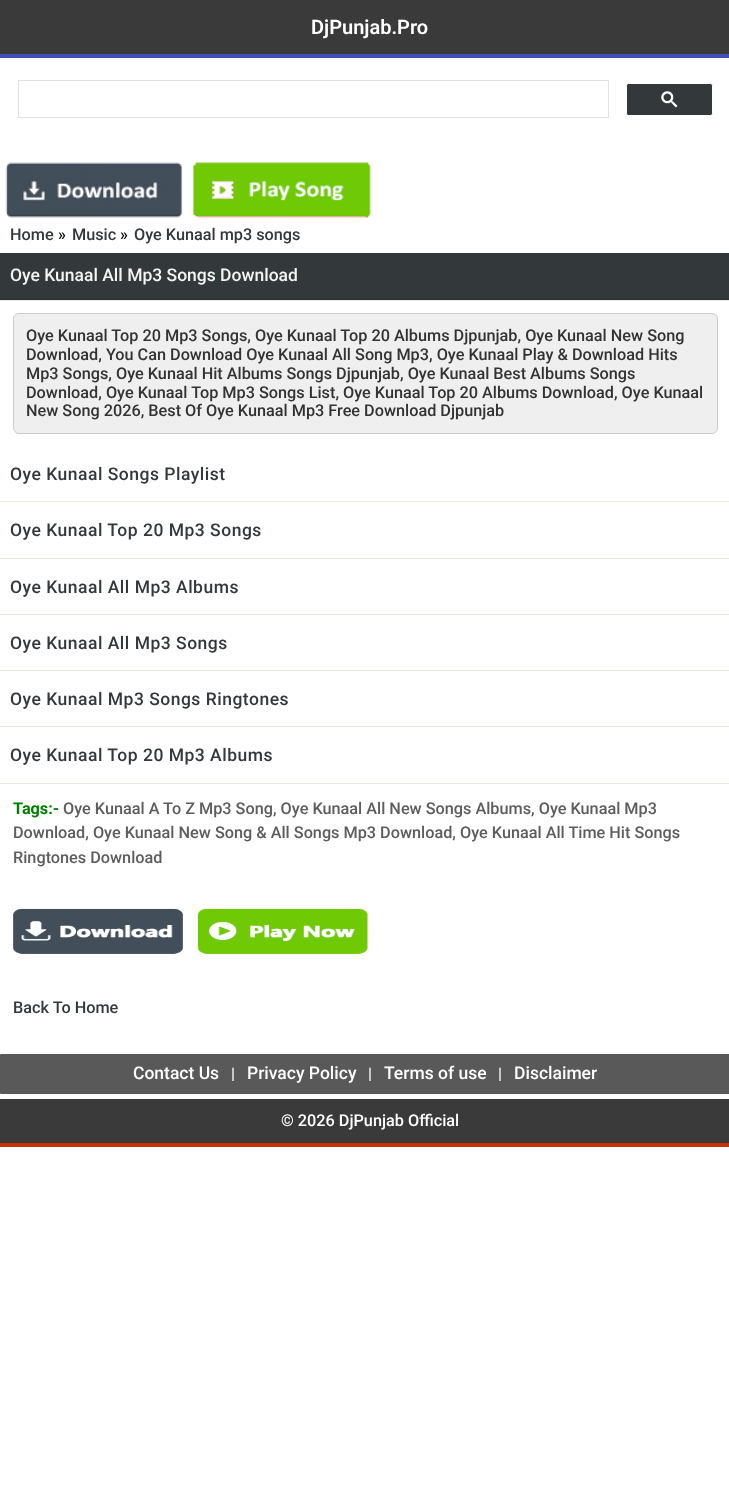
<svg xmlns="http://www.w3.org/2000/svg" width="729" height="1492">
	<rect width="100%" height="100%" fill="#FFFFFF" />
	<rect x="0" y="300" width="729" height="1" fill="#E6E6E6" />
	<rect x="0" y="0" width="729" height="54" fill="#3A3A3A" />
	<rect x="0" y="54" width="729" height="4" fill="#3F51B5" />
	<text x="311" y="34" font-family="Roboto" font-size="20" font-weight="600" fill="#FFFFFF">DjPunjab.Pro</text>
	<rect x="18.5" y="80.5" width="590" height="37" fill="none" stroke="#DFE1E5" />
	<rect x="626.5" y="83.5" width="86" height="32" rx="2" fill="#33383B" stroke="#FFFFFF" />
	<image x="661" y="91" width="17" height="17" href="assets/img1.png" />
	<image x="5" y="162" width="366" height="56" href="assets/img2.png" />
	<text x="10" y="240" font-family="Roboto" font-size="16.25" font-weight="500" fill="#33383B">Home</text>
	<text x="58" y="240" font-family="Roboto" font-size="16.25" font-weight="500" fill="#000000">»</text>
	<text x="72" y="240" font-family="Roboto" font-size="16.25" font-weight="500" fill="#33383B">Music</text>
	<text x="120" y="240" font-family="Roboto" font-size="16.25" font-weight="500" fill="#000000">»</text>
	<text x="134" y="240" font-family="Roboto" font-size="16.25" font-weight="500" fill="#33383B">Oye Kunaal mp3 songs</text>
	<rect x="0" y="253" width="729" height="45" fill="#33383B" />
	<rect x="0" y="298" width="729" height="2" fill="#2E3235" />
	<text x="10" y="281" font-family="Roboto" font-size="17.5" font-weight="500" fill="#F5F5F5">Oye Kunaal All Mp3 Songs Download</text>
	<rect x="13.5" y="313.5" width="704" height="120" rx="5.5" fill="#EFEFEF" stroke="#CCCCCC" />
	<g font-family="Roboto" font-size="16.25" font-weight="500" fill="#333333">
		<text x="26" y="341">Oye Kunaal Top 20 Mp3 Songs, Oye Kunaal Top 20 Albums Djpunjab, Oye Kunaal New Song</text>
		<text x="26" y="360">Download, You Can Download Oye Kunaal All Song Mp3, Oye Kunaal Play &amp; Download Hits</text>
		<text x="26" y="379">Mp3 Songs, Oye Kunaal Hit Albums Songs Djpunjab, Oye Kunaal Best Albums Songs</text>
		<text x="26" y="398">Download, Oye Kunaal Top Mp3 Songs List, Oye Kunaal Top 20 Albums Download, Oye Kunaal</text>
		<text x="26" y="416">New Song 2026, Best Of Oye Kunaal Mp3 Free Download Djpunjab</text>
	</g>
	<rect x="0" y="501" width="729" height="1" fill="#EDE9DC" />
	<text x="10" y="480" font-family="Roboto" font-size="17.5" font-weight="500" letter-spacing="0.5" fill="#33383B">Oye Kunaal Songs Playlist</text>
	<rect x="0" y="558" width="729" height="1" fill="#EDE9DC" />
	<text x="10" y="536" font-family="Roboto" font-size="17.5" font-weight="500" letter-spacing="0.5" fill="#33383B">Oye Kunaal Top 20 Mp3 Songs</text>
	<rect x="0" y="614" width="729" height="1" fill="#EDE9DC" />
	<text x="10" y="593" font-family="Roboto" font-size="17.5" font-weight="500" letter-spacing="0.5" fill="#33383B">Oye Kunaal All Mp3 Albums</text>
	<rect x="0" y="670" width="729" height="1" fill="#EDE9DC" />
	<text x="10" y="649" font-family="Roboto" font-size="17.5" font-weight="500" letter-spacing="0.5" fill="#33383B">Oye Kunaal All Mp3 Songs</text>
	<rect x="0" y="726" width="729" height="1" fill="#EDE9DC" />
	<text x="10" y="705" font-family="Roboto" font-size="17.5" font-weight="500" letter-spacing="0.5" fill="#33383B">Oye Kunaal Mp3 Songs Ringtones</text>
	<rect x="0" y="783" width="729" height="1" fill="#EDE9DC" />
	<text x="10" y="761" font-family="Roboto" font-size="17.5" font-weight="500" letter-spacing="0.5" fill="#33383B">Oye Kunaal Top 20 Mp3 Albums</text>
	<text x="13" y="814" font-family="Roboto" font-size="16.25" font-weight="700" fill="#008000">Tags:-</text>
	<g font-family="Roboto" font-size="16.25" font-weight="500" fill="#5D5D5D">
		<text x="63" y="814">Oye Kunaal A To Z Mp3 Song, Oye Kunaal All New Songs Albums, Oye Kunaal Mp3</text>
		<text x="13" y="838">Download, Oye Kunaal New Song &amp; All Songs Mp3 Download, Oye Kunaal All Time Hit Songs</text>
		<text x="13" y="863">Ringtones Download</text>
	</g>
	<image x="13" y="908" width="355" height="46" href="assets/img3.png" />
	<text x="13" y="1013" font-family="Roboto" font-size="16.25" font-weight="500" fill="#33383B">Back To Home</text>
	<rect x="0" y="1054" width="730" height="40" rx="1" fill="#595959" />
	<text x="133" y="1079" font-family="Roboto" font-size="17.5" font-weight="500" fill="#FFFFFF">Contact Us</text>
	<text x="231" y="1079" font-family="Roboto" font-size="16" font-weight="500" fill="#FFFFFF">|</text>
	<text x="247" y="1079" font-family="Roboto" font-size="17.5" font-weight="500" fill="#FFFFFF">Privacy Policy</text>
	<text x="368" y="1079" font-family="Roboto" font-size="16" font-weight="500" fill="#FFFFFF">|</text>
	<text x="384" y="1079" font-family="Roboto" font-size="17.5" font-weight="500" fill="#FFFFFF">Terms of use</text>
	<text x="498" y="1079" font-family="Roboto" font-size="16" font-weight="500" fill="#FFFFFF">|</text>
	<text x="514" y="1079" font-family="Roboto" font-size="17.5" font-weight="500" fill="#FFFFFF">Disclaimer</text>
	<rect x="0" y="1099" width="729" height="44" fill="#3A3A3A" />
	<rect x="0" y="1143" width="729" height="4" fill="#CC3000" />
	<text x="281" y="1126" font-family="Roboto" font-size="16.25" font-weight="500" fill="#FFFFFF">© 2026 DjPunjab Official</text>
</svg>
